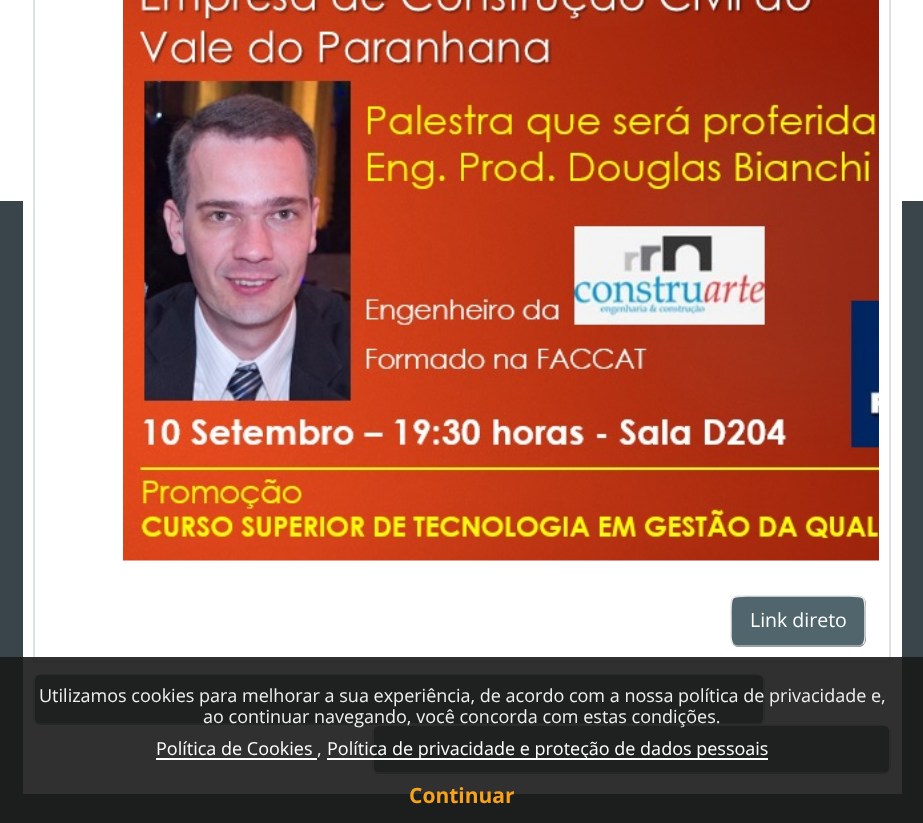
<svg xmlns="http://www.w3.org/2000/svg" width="923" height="823">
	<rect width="100%" height="100%" fill="#3A454B" />
	<rect x="0" y="0" width="923" height="201" fill="#FFFFFF" />
	<rect x="23" y="201" width="879" height="593" fill="#FFFFFF" />
	<rect x="34" y="-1" width="856" height="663" fill="none" stroke="#DEE2E6" stroke-width="2" />
	<image x="123" y="0" width="756" height="561" href="assets/img1.png" />
	<rect x="731" y="596" width="135" height="51" rx="8" fill="#51666C" />
	<path d="M863 644C861.5 645 860 646 858 646H738C736 646 734.5 645 733 644" fill="none" stroke="#B3B3B3" stroke-width="1.5" />
	<path d="M733 644C730.5 641 731 636.5 731 633V621C731 592.5 728 596 758 596H838C868 596 865 592.5 865 621V633C865 636.5 865.5 641 863 644" fill="none" stroke="#E6E6E6" stroke-width="1.5" />
	<text x="750" y="627" font-family="Open Sans" font-size="19.5" fill="#FFFFFF">Link direto</text>
	<rect x="33" y="674" width="732" height="51" rx="8" fill="#51666C" />
	<path d="M762.5 722C761 723 759.5 724 757.5 724H40.5C38.5 724 37 723 35.5 722" fill="none" stroke="#B3B3B3" stroke-width="1.5" />
	<path d="M35.5 722C34.5 720.5 34 719 34 717V681C34 679 34.5 677.5 35.5 676C37 675 38.5 674 40.5 674H757.5C759.5 674 761 675 762.5 676C763.5 677.5 764 679 764 681V717C764 719 763.5 720.5 762.5 722" fill="none" stroke="#E6E6E6" stroke-width="1.5" />
	<rect x="372" y="725" width="519" height="49" rx="8" fill="#51666C" />
	<path d="M888.5 771.5C887 772.5 885.5 773 883.5 773H379.5C377.5 773 376 772.5 374.5 771.5" fill="none" stroke="#B3B3B3" stroke-width="1.5" />
	<path d="M374.5 771.5C373.5 770 373 768.5 373 766.5V732C373 730 373.5 728.5 374.5 727C376 726 377.5 725 379.5 725H883.5C885.5 725 887 726 888.5 727C889.5 728.5 890 730 890 732V766.5C890 768.5 889.5 770 888.5 771.5" fill="none" stroke="#E6E6E6" stroke-width="1.5" />
	<rect x="0" y="657" width="923" height="166" fill="#191919" fill-opacity="0.9" />
	<g font-family="Open Sans" font-size="18" fill="#EFEFEF">
		<text x="39" y="702">Utilizamos cookies para melhorar a sua experiência, de acordo com a nossa política de privacidade e,</text>
		<text x="203" y="723">ao continuar navegando, você concorda com estas condições.</text>
	</g>
	<text x="156" y="755" font-family="Open Sans" font-size="18" fill="#FFFFFF">Política de Cookies</text>
	<rect x="156" y="758" width="161" height="2" fill="#FFFFFF" />
	<text x="317" y="755" font-family="Open Sans" font-size="18" fill="#EFEFEF">,</text>
	<rect x="327" y="758" width="441" height="2" fill="#FFFFFF" />
	<text x="327" y="755" font-family="Open Sans" font-size="18" fill="#FFFFFF">Política de privacidade e proteção de dados pessoais</text>
	<text x="409" y="803" font-family="Open Sans" font-size="21" font-weight="700" fill="#F6A21D">Continuar</text>
</svg>
